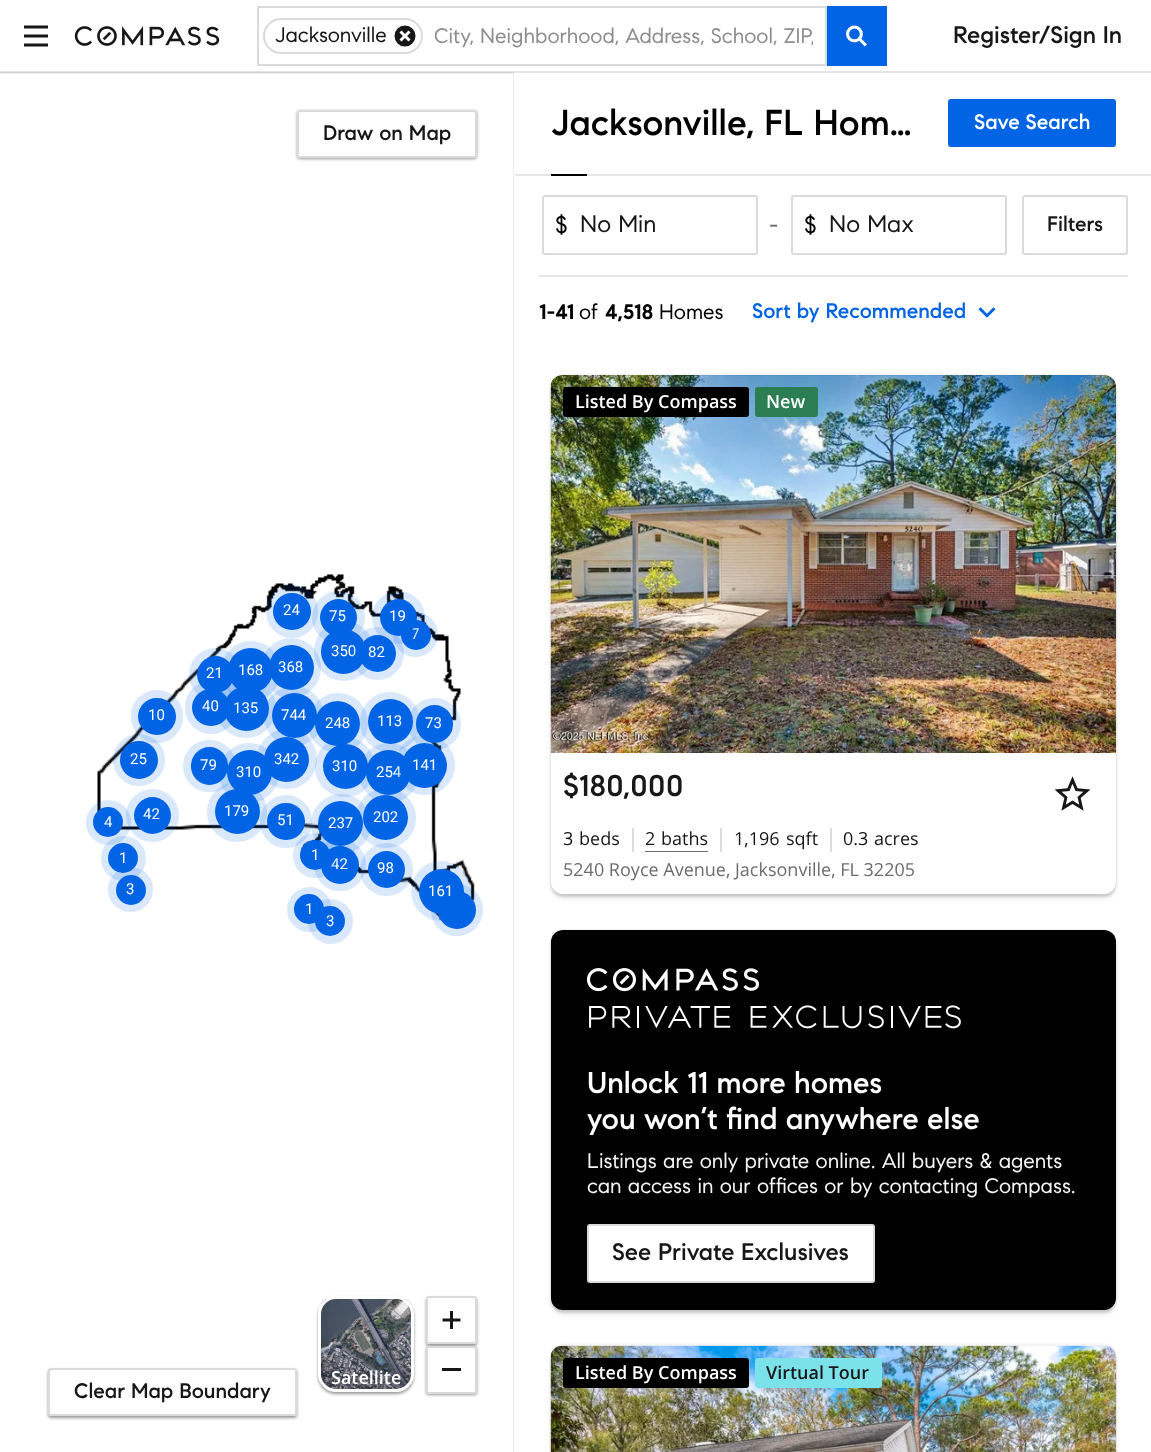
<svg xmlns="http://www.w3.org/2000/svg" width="1151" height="1452">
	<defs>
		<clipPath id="clip1"><rect x="435" y="24" width="378" height="26" /></clipPath>
		<clipPath id="clip2"><path d="M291 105H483V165H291ZM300 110H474C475.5 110 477 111.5 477 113V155C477 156.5 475.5 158 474 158H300C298.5 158 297 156.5 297 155V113C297 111.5 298.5 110 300 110Z" clip-rule="evenodd" /></clipPath>
		<clipPath id="clip3"><path d="M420 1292H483V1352H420ZM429 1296H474C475.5 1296 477 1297.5 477 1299V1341C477 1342.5 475.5 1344 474 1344H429C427.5 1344 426 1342.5 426 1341V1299C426 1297.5 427.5 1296 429 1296Z" clip-rule="evenodd" /></clipPath>
		<clipPath id="clip4"><path d="M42 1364H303V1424H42ZM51 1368H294C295.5 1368 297 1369.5 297 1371V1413C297 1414.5 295.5 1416 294 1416H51C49.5 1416 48 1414.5 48 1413V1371C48 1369.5 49.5 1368 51 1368Z" clip-rule="evenodd" /></clipPath>
	</defs>
	<rect width="100%" height="100%" fill="#FFFFFF" />
	<path d="M0 72H514L513 74H0Z" fill="#EBEBEB" />
	<path d="M514 72V1452H513V74Z" fill="#000000" fill-opacity="0.08" />
	<rect x="0" y="71" width="1151" height="2" fill="#000000" fill-opacity="0.1" />
	<image x="24" y="25" width="24" height="22" href="assets/img1.png" />
	<image x="74" y="26" width="146" height="20" href="assets/img2.png" />
	<rect x="258" y="7" width="568" height="58" fill="none" stroke="#DADADA" stroke-width="2" />
	<rect x="264" y="19" width="158" height="34" rx="17" fill="none" stroke="#DADADA" stroke-width="2" />
	<text x="275" y="42" font-family="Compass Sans" font-size="21" fill="#171717">Jacksonville</text>
	<image x="394" y="25" width="22" height="22" href="assets/img3.png" />
	<g clip-path="url(#clip1)">
		<text x="434" y="43" font-family="Compass Sans" font-size="21" fill="#8D8D8D">City, Neighborhood, Address, School, ZIP,</text>
	</g>
	<rect x="827" y="6" width="60" height="60" fill="#0064E5" />
	<image x="846" y="25" width="21" height="22" href="assets/img4.png" />
	<text x="953" y="43" font-family="Compass Sans" font-size="24" font-weight="500" fill="#171717">Register/Sign In</text>
	<g clip-path="url(#clip2)">
		<rect x="297" y="111" width="180" height="48" rx="3" fill="#000000" fill-opacity="0.4" filter="blur(1.5px)" />
	</g>
	<rect x="298" y="111" width="178" height="46" rx="2" fill="none" stroke="#DADADA" stroke-width="2" />
	<text x="323" y="140" font-family="Compass Sans" font-size="21" font-weight="500" fill="#171717">Draw on Map</text>
	<rect x="318" y="1298" width="96" height="96" rx="18" fill="#000000" fill-opacity="0.4" filter="blur(1.5px)" />
	<image x="321" y="1299" width="90" height="90" href="assets/img5.png" />
	<rect x="319.5" y="1297.5" width="93" height="93" rx="16.5" fill="none" stroke="#FFFFFF" stroke-width="3" />
	<text x="331" y="1384" font-family="Open Sans" font-size="18" font-weight="600" fill="#FFFFFF">Satellite</text>
	<g clip-path="url(#clip3)">
		<rect x="426" y="1298" width="51" height="48" rx="3" fill="#000000" fill-opacity="0.4" filter="blur(1.5px)" />
	</g>
	<rect x="427" y="1297" width="49" height="46" rx="2" fill="none" stroke="#DADADA" stroke-width="2" />
	<image x="442" y="1311" width="19" height="18" href="assets/img6.png" />
	<rect x="426" y="1347" width="51" height="48" rx="3" fill="#000000" fill-opacity="0.4" filter="blur(1.5px)" />
	<rect x="427" y="1347" width="49" height="46" rx="2" fill="#FFFFFF" stroke="#DADADA" stroke-width="2" />
	<rect x="442" y="1368" width="19" height="3" fill="#171717" />
	<g clip-path="url(#clip4)">
		<rect x="48" y="1370" width="249" height="48" rx="3" fill="#000000" fill-opacity="0.4" filter="blur(1.5px)" />
	</g>
	<rect x="49" y="1369" width="247" height="46" rx="2" fill="none" stroke="#DADADA" stroke-width="2" />
	<text x="74" y="1398" font-family="Compass Sans" font-size="21" font-weight="500" fill="#171717">Clear Map Boundary</text>
	<image x="97" y="574" width="378" height="348" href="assets/img7.png" />
	<rect x="273" y="593" width="38" height="37" rx="18.5" fill="#0064E5" />
	<circle cx="338.5" cy="617.5" r="18.5" fill="#0064E5" />
	<circle cx="338.5" cy="617.5" r="22.5" fill="none" stroke="#0064E5" stroke-opacity="0.15" stroke-width="8" />
	<rect x="270" y="589" width="44" height="45" rx="22" fill="none" stroke="#0064E5" stroke-opacity="0.15" stroke-width="8" />
	<g font-family="Roboto" font-size="15" fill="#FFFFFF">
		<text x="283" y="615">24</text>
		<text x="329" y="621">75</text>
	</g>
	<circle cx="416" cy="635" r="15" fill="#0064E5" />
	<circle cx="415.5" cy="634.5" r="18.5" fill="none" stroke="#0064E5" stroke-opacity="0.15" stroke-width="8" />
	<text x="411" y="639" font-family="Roboto" font-size="15" fill="#FFFFFF">7</text>
	<circle cx="343.5" cy="651.5" r="22.5" fill="#0064E5" />
	<circle cx="344" cy="651" r="26" fill="none" stroke="#0064E5" stroke-opacity="0.15" stroke-width="8" />
	<circle cx="377.5" cy="653.5" r="18.5" fill="#0064E5" />
	<text x="331" y="656" font-family="Roboto" font-size="15" fill="#FFFFFF">350</text>
	<circle cx="377.5" cy="653.5" r="22.5" fill="none" stroke="#0064E5" stroke-opacity="0.15" stroke-width="8" />
	<circle cx="398.5" cy="617.5" r="18.5" fill="#0064E5" />
	<circle cx="398.5" cy="617.5" r="22.5" fill="none" stroke="#0064E5" stroke-opacity="0.15" stroke-width="8" />
	<g font-family="Roboto" font-size="15" fill="#FFFFFF">
		<text x="389" y="621">19</text>
		<text x="368" y="657">82</text>
	</g>
	<circle cx="291.5" cy="667.5" r="22.5" fill="#0064E5" />
	<circle cx="291" cy="668" r="26" fill="none" stroke="#0064E5" stroke-opacity="0.15" stroke-width="8" />
	<circle cx="250.5" cy="670.5" r="22.5" fill="#0064E5" />
	<text x="278" y="672" font-family="Roboto" font-size="15" fill="#FFFFFF">368</text>
	<circle cx="251" cy="671" r="26" fill="none" stroke="#0064E5" stroke-opacity="0.15" stroke-width="8" />
	<circle cx="345.5" cy="766.5" r="22.5" fill="#0064E5" />
	<circle cx="345" cy="767" r="26" fill="none" stroke="#0064E5" stroke-opacity="0.15" stroke-width="8" />
	<circle cx="294.5" cy="715.5" r="22.5" fill="#0064E5" />
	<circle cx="294" cy="716" r="26" fill="none" stroke="#0064E5" stroke-opacity="0.15" stroke-width="8" />
	<circle cx="246.5" cy="708.5" r="22.5" fill="#0064E5" />
	<circle cx="246" cy="708" r="26" fill="none" stroke="#0064E5" stroke-opacity="0.15" stroke-width="8" />
	<circle cx="215.5" cy="674.5" r="18.5" fill="#0064E5" />
	<text x="238" y="675" font-family="Roboto" font-size="15" fill="#FFFFFF">168</text>
	<circle cx="215.5" cy="674.5" r="22.5" fill="none" stroke="#0064E5" stroke-opacity="0.15" stroke-width="8" />
	<text x="206" y="678" font-family="Roboto" font-size="15" fill="#FFFFFF">21</text>
	<circle cx="139" cy="760" r="19" fill="#0064E5" />
	<circle cx="139" cy="760" r="22" fill="none" stroke="#0064E5" stroke-opacity="0.15" stroke-width="8" />
	<rect x="138" y="698" width="38" height="37" rx="18.5" fill="#0064E5" />
	<rect x="135" y="694" width="44" height="45" rx="22" fill="none" stroke="#0064E5" stroke-opacity="0.15" stroke-width="8" />
	<text x="148" y="720" font-family="Roboto" font-size="15" fill="#FFFFFF">10</text>
	<rect x="192" y="689" width="38" height="37" rx="18.5" fill="#0064E5" />
	<text x="233" y="713" font-family="Roboto" font-size="15" fill="#FFFFFF">135</text>
	<rect x="189" y="685" width="44" height="45" rx="22" fill="none" stroke="#0064E5" stroke-opacity="0.15" stroke-width="8" />
	<g font-family="Roboto" font-size="15" fill="#FFFFFF">
		<text x="202" y="711">40</text>
		<text x="281" y="720">744</text>
	</g>
	<circle cx="337.5" cy="723.5" r="22.5" fill="#0064E5" />
	<circle cx="338" cy="723" r="26" fill="none" stroke="#0064E5" stroke-opacity="0.15" stroke-width="8" />
	<text x="325" y="728" font-family="Roboto" font-size="15" fill="#FFFFFF">248</text>
	<rect x="267" y="803" width="38" height="37" rx="18.5" fill="#0064E5" />
	<rect x="264" y="799" width="44" height="45" rx="22" fill="none" stroke="#0064E5" stroke-opacity="0.15" stroke-width="8" />
	<circle cx="340.5" cy="823.5" r="22.5" fill="#0064E5" />
	<circle cx="341" cy="824" r="26" fill="none" stroke="#0064E5" stroke-opacity="0.15" stroke-width="8" />
	<circle cx="388.5" cy="772.5" r="22.5" fill="#0064E5" />
	<circle cx="389" cy="773" r="26" fill="none" stroke="#0064E5" stroke-opacity="0.15" stroke-width="8" />
	<circle cx="424.5" cy="765.5" r="22.5" fill="#0064E5" />
	<text x="376" y="777" font-family="Roboto" font-size="15" fill="#FFFFFF">254</text>
	<circle cx="425" cy="765" r="26" fill="none" stroke="#0064E5" stroke-opacity="0.15" stroke-width="8" />
	<circle cx="390.5" cy="721.5" r="22.5" fill="#0064E5" />
	<circle cx="390" cy="722" r="26" fill="none" stroke="#0064E5" stroke-opacity="0.15" stroke-width="8" />
	<text x="377" y="726" font-family="Roboto" font-size="15" fill="#FFFFFF">113</text>
	<rect x="416" y="705" width="37" height="38" rx="18.5" fill="#0064E5" />
	<rect x="412" y="702" width="45" height="44" rx="22" fill="none" stroke="#0064E5" stroke-opacity="0.15" stroke-width="8" />
	<g font-family="Roboto" font-size="15" fill="#FFFFFF">
		<text x="425" y="728">73</text>
		<text x="130" y="764">25</text>
	</g>
	<circle cx="286.5" cy="759.5" r="22.5" fill="#0064E5" />
	<circle cx="287" cy="759" r="26" fill="none" stroke="#0064E5" stroke-opacity="0.15" stroke-width="8" />
	<circle cx="237.5" cy="811.5" r="22.5" fill="#0064E5" />
	<circle cx="237" cy="812" r="26" fill="none" stroke="#0064E5" stroke-opacity="0.15" stroke-width="8" />
	<rect x="191" y="747" width="37" height="38" rx="18.5" fill="#0064E5" />
	<rect x="187" y="744" width="45" height="44" rx="22" fill="none" stroke="#0064E5" stroke-opacity="0.15" stroke-width="8" />
	<text x="200" y="770" font-family="Roboto" font-size="15" fill="#FFFFFF">79</text>
	<circle cx="249.5" cy="772.5" r="22.5" fill="#0064E5" />
	<text x="274" y="764" font-family="Roboto" font-size="15" fill="#FFFFFF">342</text>
	<circle cx="249" cy="773" r="26" fill="none" stroke="#0064E5" stroke-opacity="0.15" stroke-width="8" />
	<g font-family="Roboto" font-size="15" fill="#FFFFFF">
		<text x="236" y="777">310</text>
		<text x="332" y="771">310</text>
		<text x="412" y="770">141</text>
	</g>
	<circle cx="108" cy="822" r="15" fill="#0064E5" />
	<circle cx="108.5" cy="822.5" r="18.5" fill="none" stroke="#0064E5" stroke-opacity="0.15" stroke-width="8" />
	<text x="104" y="827" font-family="Roboto" font-size="15" fill="#FFFFFF">4</text>
	<circle cx="152.5" cy="815.5" r="18.5" fill="#0064E5" />
	<circle cx="152.5" cy="815.5" r="22.5" fill="none" stroke="#0064E5" stroke-opacity="0.15" stroke-width="8" />
	<g font-family="Roboto" font-size="15" fill="#FFFFFF">
		<text x="143" y="819">42</text>
		<text x="224" y="816">179</text>
		<text x="277" y="825">51</text>
		<text x="328" y="828">237</text>
	</g>
	<circle cx="340" cy="865" r="19" fill="#0064E5" />
	<circle cx="340" cy="865" r="22" fill="none" stroke="#0064E5" stroke-opacity="0.15" stroke-width="8" />
	<circle cx="385.5" cy="817.5" r="22.5" fill="#0064E5" />
	<circle cx="386" cy="818" r="26" fill="none" stroke="#0064E5" stroke-opacity="0.15" stroke-width="8" />
	<text x="373" y="822" font-family="Roboto" font-size="15" fill="#FFFFFF">202</text>
	<circle cx="123" cy="858" r="15" fill="#0064E5" />
	<circle cx="123.5" cy="858.5" r="18.5" fill="none" stroke="#0064E5" stroke-opacity="0.15" stroke-width="8" />
	<text x="119" y="863" font-family="Roboto" font-size="15" fill="#FFFFFF">1</text>
	<circle cx="315" cy="855" r="15" fill="#0064E5" />
	<text x="331" y="869" font-family="Roboto" font-size="15" fill="#FFFFFF">42</text>
	<circle cx="315.5" cy="855.5" r="18.5" fill="none" stroke="#0064E5" stroke-opacity="0.15" stroke-width="8" />
	<text x="311" y="860" font-family="Roboto" font-size="15" fill="#FFFFFF">1</text>
	<circle cx="386.5" cy="869.5" r="18.5" fill="#0064E5" />
	<circle cx="386.5" cy="869.5" r="22.5" fill="none" stroke="#0064E5" stroke-opacity="0.15" stroke-width="8" />
	<text x="377" y="873" font-family="Roboto" font-size="15" fill="#FFFFFF">98</text>
	<circle cx="131" cy="890" r="15" fill="#0064E5" />
	<circle cx="130.5" cy="889.5" r="18.5" fill="none" stroke="#0064E5" stroke-opacity="0.15" stroke-width="8" />
	<text x="126" y="894" font-family="Roboto" font-size="15" fill="#FFFFFF">3</text>
	<circle cx="457" cy="910" r="19" fill="#0064E5" />
	<circle cx="457" cy="910" r="22" fill="none" stroke="#0064E5" stroke-opacity="0.15" stroke-width="8" />
	<circle cx="441.5" cy="891.5" r="22.5" fill="#0064E5" />
	<circle cx="441" cy="891" r="26" fill="none" stroke="#0064E5" stroke-opacity="0.15" stroke-width="8" />
	<text x="428" y="896" font-family="Roboto" font-size="15" fill="#FFFFFF">161</text>
	<circle cx="330" cy="921" r="15" fill="#0064E5" />
	<circle cx="330.5" cy="921.5" r="18.5" fill="none" stroke="#0064E5" stroke-opacity="0.15" stroke-width="8" />
	<circle cx="309" cy="909" r="15" fill="#0064E5" />
	<text x="326" y="926" font-family="Roboto" font-size="15" fill="#FFFFFF">3</text>
	<circle cx="309.5" cy="909.5" r="18.5" fill="none" stroke="#0064E5" stroke-opacity="0.15" stroke-width="8" />
	<text x="305" y="914" font-family="Roboto" font-size="15" fill="#FFFFFF">1</text>
	<rect x="515" y="174" width="636" height="2" fill="#E6E6E6" />
	<text x="551" y="135" font-family="Compass Sans" font-size="36" font-weight="500" fill="#000000">Jacksonville, FL Hom…</text>
	<rect x="949" y="100" width="166" height="46" rx="2" fill="#0064E5" stroke="#0064E5" stroke-width="2" />
	<text x="974" y="129" font-family="Compass Sans" font-size="21" font-weight="500" fill="#FFFFFF">Save Search</text>
	<rect x="551" y="174" width="36" height="2" fill="#000000" />
	<rect x="543" y="196" width="214" height="58" rx="2" fill="none" stroke="#DADADA" stroke-width="2" />
	<text x="555" y="233" font-family="Compass Sans" font-size="24" fill="#000000">$</text>
	<text x="580" y="232" font-family="Compass Sans" font-size="24" fill="#171717">No Min</text>
	<text x="769" y="233" font-family="Compass Sans" font-size="24" fill="#6C6C6C">-</text>
	<rect x="792" y="196" width="214" height="58" rx="2" fill="none" stroke="#DADADA" stroke-width="2" />
	<text x="804" y="233" font-family="Compass Sans" font-size="24" fill="#000000">$</text>
	<text x="829" y="232" font-family="Compass Sans" font-size="24" fill="#171717">No Max</text>
	<rect x="1023" y="196" width="104" height="58" rx="2" fill="none" stroke="#DADADA" stroke-width="2" />
	<text x="1047" y="231" font-family="Compass Sans" font-size="21" font-weight="500" fill="#171717">Filters</text>
	<rect x="539" y="275" width="589" height="2" fill="#E6E6E6" />
	<text x="539" y="319" font-family="Compass Sans" font-size="21" font-weight="700" fill="#000000">1-41</text>
	<text x="579" y="319" font-family="Compass Sans" font-size="21" fill="#000000">of</text>
	<text x="605" y="319" font-family="Compass Sans" font-size="21" font-weight="700" fill="#000000">4,518</text>
	<text x="659" y="319" font-family="Compass Sans" font-size="21" fill="#000000">Homes</text>
	<text x="752" y="318" font-family="Compass Sans" font-size="21" font-weight="500" fill="#0064E5">Sort by Recommended</text>
	<image x="978" y="307" width="18" height="11" href="assets/img8.png" />
	<rect x="551" y="374" width="565" height="519" rx="12" fill="#000000" fill-opacity="0.06" filter="blur(1px)" />
	<rect x="551" y="378" width="565" height="519" rx="12" fill="#000000" fill-opacity="0.14" filter="blur(1px)" />
	<rect x="552" y="381" width="563" height="516" rx="11" fill="#000000" fill-opacity="0.1" filter="blur(3px)" />
	<rect x="551" y="375" width="565" height="519" rx="12" fill="#FFFFFF" />
	<image x="550" y="375" width="566" height="378" href="assets/img9.png" />
	<rect x="563" y="387" width="186" height="30" rx="3" fill="#000000" />
	<text x="575" y="408" font-family="Open Sans" font-size="18" font-weight="600" fill="#FFFFFF">Listed By Compass</text>
	<rect x="755" y="387" width="63" height="30" rx="3" fill="#2A7E51" />
	<text x="766" y="408" font-family="Open Sans" font-size="18" font-weight="600" fill="#FFFFFF">New</text>
	<text x="575" y="720" font-family="Compass Sans" font-size="18" font-weight="700" fill="#938178">1/27</text>
	<text x="563" y="796" font-family="Compass Sans" font-size="30" font-weight="500" fill="#171717">$180,000</text>
	<image x="1054" y="776" width="37" height="35" href="assets/img10.png" />
	<g font-family="Open Sans" font-size="18" fill="#171717">
		<text x="563" y="845">3</text>
		<text x="579" y="845">beds</text>
	</g>
	<rect x="632" y="828" width="2" height="24" fill="#DADADA" />
	<rect x="645" y="851" width="63" height="1" fill="#6C6C6C" />
	<g font-family="Open Sans" font-size="18" fill="#171717">
		<text x="645" y="845">2</text>
		<text x="661" y="845">baths</text>
	</g>
	<rect x="720" y="828" width="2" height="24" fill="#DADADA" />
	<g font-family="Open Sans" font-size="18" fill="#171717">
		<text x="734" y="845">1,196</text>
		<text x="786" y="845">sqft</text>
	</g>
	<rect x="830" y="828" width="2" height="24" fill="#DADADA" />
	<g font-family="Open Sans" font-size="18" fill="#171717">
		<text x="843" y="845">0.3</text>
		<text x="874" y="845">acres</text>
	</g>
	<text x="563" y="876" font-family="Open Sans" font-size="18" fill="#6C6C6C">5240 Royce Avenue, Jacksonville, FL 32205</text>
	<rect x="551" y="929" width="565" height="379" rx="12" fill="#000000" fill-opacity="0.06" filter="blur(1px)" />
	<rect x="551" y="933" width="565" height="380" rx="12" fill="#000000" fill-opacity="0.14" filter="blur(1px)" />
	<rect x="552" y="936" width="563" height="377" rx="11" fill="#000000" fill-opacity="0.1" filter="blur(3px)" />
	<rect x="551" y="930" width="565" height="380" rx="12" fill="#000000" />
	<image x="587" y="968" width="374" height="61" href="assets/img11.png" />
	<g font-family="Compass Sans" font-size="30" font-weight="500" fill="#FFFFFF">
		<text x="587" y="1093">Unlock 11 more homes</text>
		<text x="587" y="1129">you won’t find anywhere else</text>
	</g>
	<g font-family="Compass Sans" font-size="21" fill="#F4F4F4">
		<text x="587" y="1168">Listings are only private online. All buyers &amp; agents</text>
		<text x="587" y="1193">can access in our offices or by contacting Compass.</text>
	</g>
	<rect x="588" y="1225" width="286" height="57" rx="2" fill="#FFFFFF" stroke="#DADADA" stroke-width="2" />
	<text x="612" y="1260" font-family="Compass Sans" font-size="24" font-weight="500" fill="#171717">See Private Exclusives</text>
	<rect x="551" y="1344" width="565" height="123" rx="12" fill="#000000" fill-opacity="0.06" filter="blur(1px)" />
	<rect x="551" y="1349" width="565" height="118" rx="12" fill="#000000" fill-opacity="0.14" filter="blur(1px)" />
	<rect x="552" y="1352" width="563" height="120" rx="11" fill="#000000" fill-opacity="0.1" filter="blur(3px)" />
	<image x="550" y="1345" width="566" height="107" href="assets/img12.png" />
	<rect x="563" y="1358" width="186" height="30" rx="3" fill="#000000" />
	<text x="575" y="1379" font-family="Open Sans" font-size="18" font-weight="600" fill="#FFFFFF">Listed By Compass</text>
	<rect x="755" y="1358" width="127" height="30" rx="3" fill="#7CE2E9" />
	<text x="766" y="1379" font-family="Open Sans" font-size="18" font-weight="600" fill="#171717">Virtual Tour</text>
</svg>
